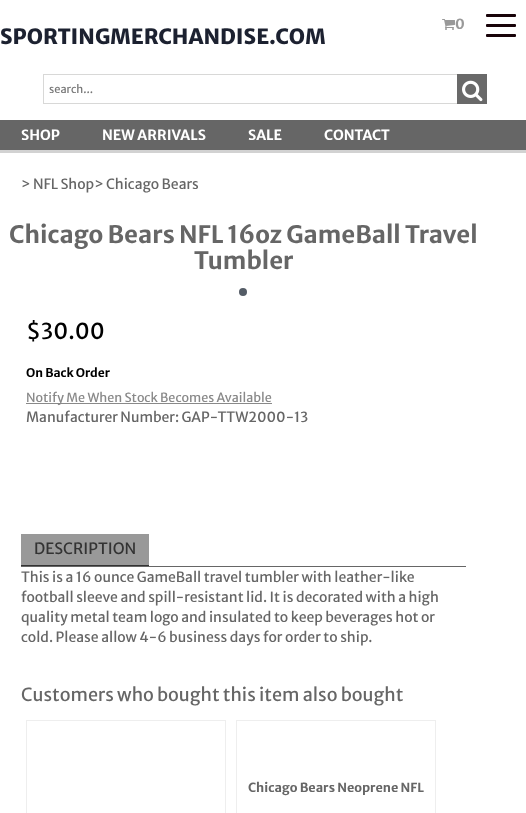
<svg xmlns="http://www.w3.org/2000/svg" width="526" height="813">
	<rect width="100%" height="100%" fill="#FFFFFF" />
	<image x="442" y="19" width="13" height="11" href="assets/img1.png" />
	<text x="455" y="29" font-family="Merriweather Sans" font-size="14" font-weight="700" fill="#999999">0</text>
	<rect x="486" y="14" width="30" height="3" rx="1" fill="#180309" />
	<rect x="486" y="24" width="30" height="3" rx="1" fill="#180309" />
	<rect x="486" y="34" width="30" height="3" rx="1" fill="#180309" />
	<text x="0" y="44" font-family="Merriweather Sans" font-size="21" font-weight="800" fill="#1C2130">SPORTINGMERCHANDISE.COM</text>
	<rect x="43.5" y="74.5" width="443" height="29" fill="none" stroke="#D8D8D7" />
	<text x="49" y="93" font-family="Merriweather Sans" font-size="11" fill="#777777">search...</text>
	<rect x="457" y="74" width="30" height="30" fill="#696969" />
	<image x="462" y="80" width="21" height="22" href="assets/img2.png" />
	<rect x="0" y="120" width="526" height="30" fill="#666666" />
	<rect x="0" y="150" width="526" height="3" fill="#D2D2D2" />
	<g font-family="Merriweather Sans" font-size="14" font-weight="700" fill="#FFFFFF">
		<text x="21" y="140">SHOP</text>
		<text x="102" y="140">NEW ARRIVALS</text>
		<text x="248" y="140">SALE</text>
		<text x="324" y="140">CONTACT</text>
	</g>
	<text x="21" y="189" font-family="Merriweather Sans" font-size="14" fill="#666666">&gt; NFL Shop&gt; Chicago Bears</text>
	<g font-family="Merriweather Sans" font-size="24" font-weight="700" fill="#666666">
		<text x="9" y="243">Chicago Bears NFL 16oz GameBall Travel</text>
		<text x="194" y="269">Tumbler</text>
	</g>
	<circle cx="243" cy="292" r="4" fill="#545C66" />
	<text x="26" y="339" font-family="Merriweather Sans" font-size="22" fill="#000000">$30.00</text>
	<text x="26" y="377" font-family="Merriweather Sans" font-size="12" font-weight="700" fill="#000000">On Back Order</text>
	<rect x="26" y="403" width="246" height="1" fill="#898989" />
	<text x="26" y="402" font-family="Merriweather Sans" font-size="12.6" fill="#898989">Notify Me When Stock Becomes Available</text>
	<text x="26" y="422" font-family="Merriweather Sans" font-size="14" fill="#666666">Manufacturer Number: GAP-TTW2000-13</text>
	<rect x="21" y="566" width="445" height="1" fill="#666666" />
	<rect x="21" y="534" width="128" height="31" fill="#999999" />
	<rect x="21" y="565" width="128" height="1" fill="#333333" />
	<text x="34" y="554" font-family="Merriweather Sans" font-size="15.5" fill="#333333">DESCRIPTION</text>
	<g font-family="Merriweather Sans" font-size="14" fill="#666666">
		<text x="21" y="582">This is a 16 ounce GameBall travel tumbler with leather-like</text>
		<text x="21" y="602">football sleeve and spill-resistant lid. It is decorated with a high</text>
		<text x="21" y="622">quality metal team logo and insulated to keep beverages hot or</text>
		<text x="21" y="642">cold. Please allow 4-6 business days for order to ship.</text>
	</g>
	<text x="21" y="701" font-family="Merriweather Sans" font-size="18" fill="#666666">Customers who bought this item also bought</text>
	<rect x="26.5" y="720.5" width="199" height="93" fill="none" stroke="#EEEEEE" />
	<rect x="236.5" y="720.5" width="199" height="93" fill="none" stroke="#EEEEEE" />
	<text x="248" y="792" font-family="Merriweather Sans" font-size="12.6" font-weight="700" fill="#666666">Chicago Bears Neoprene NFL</text>
</svg>
